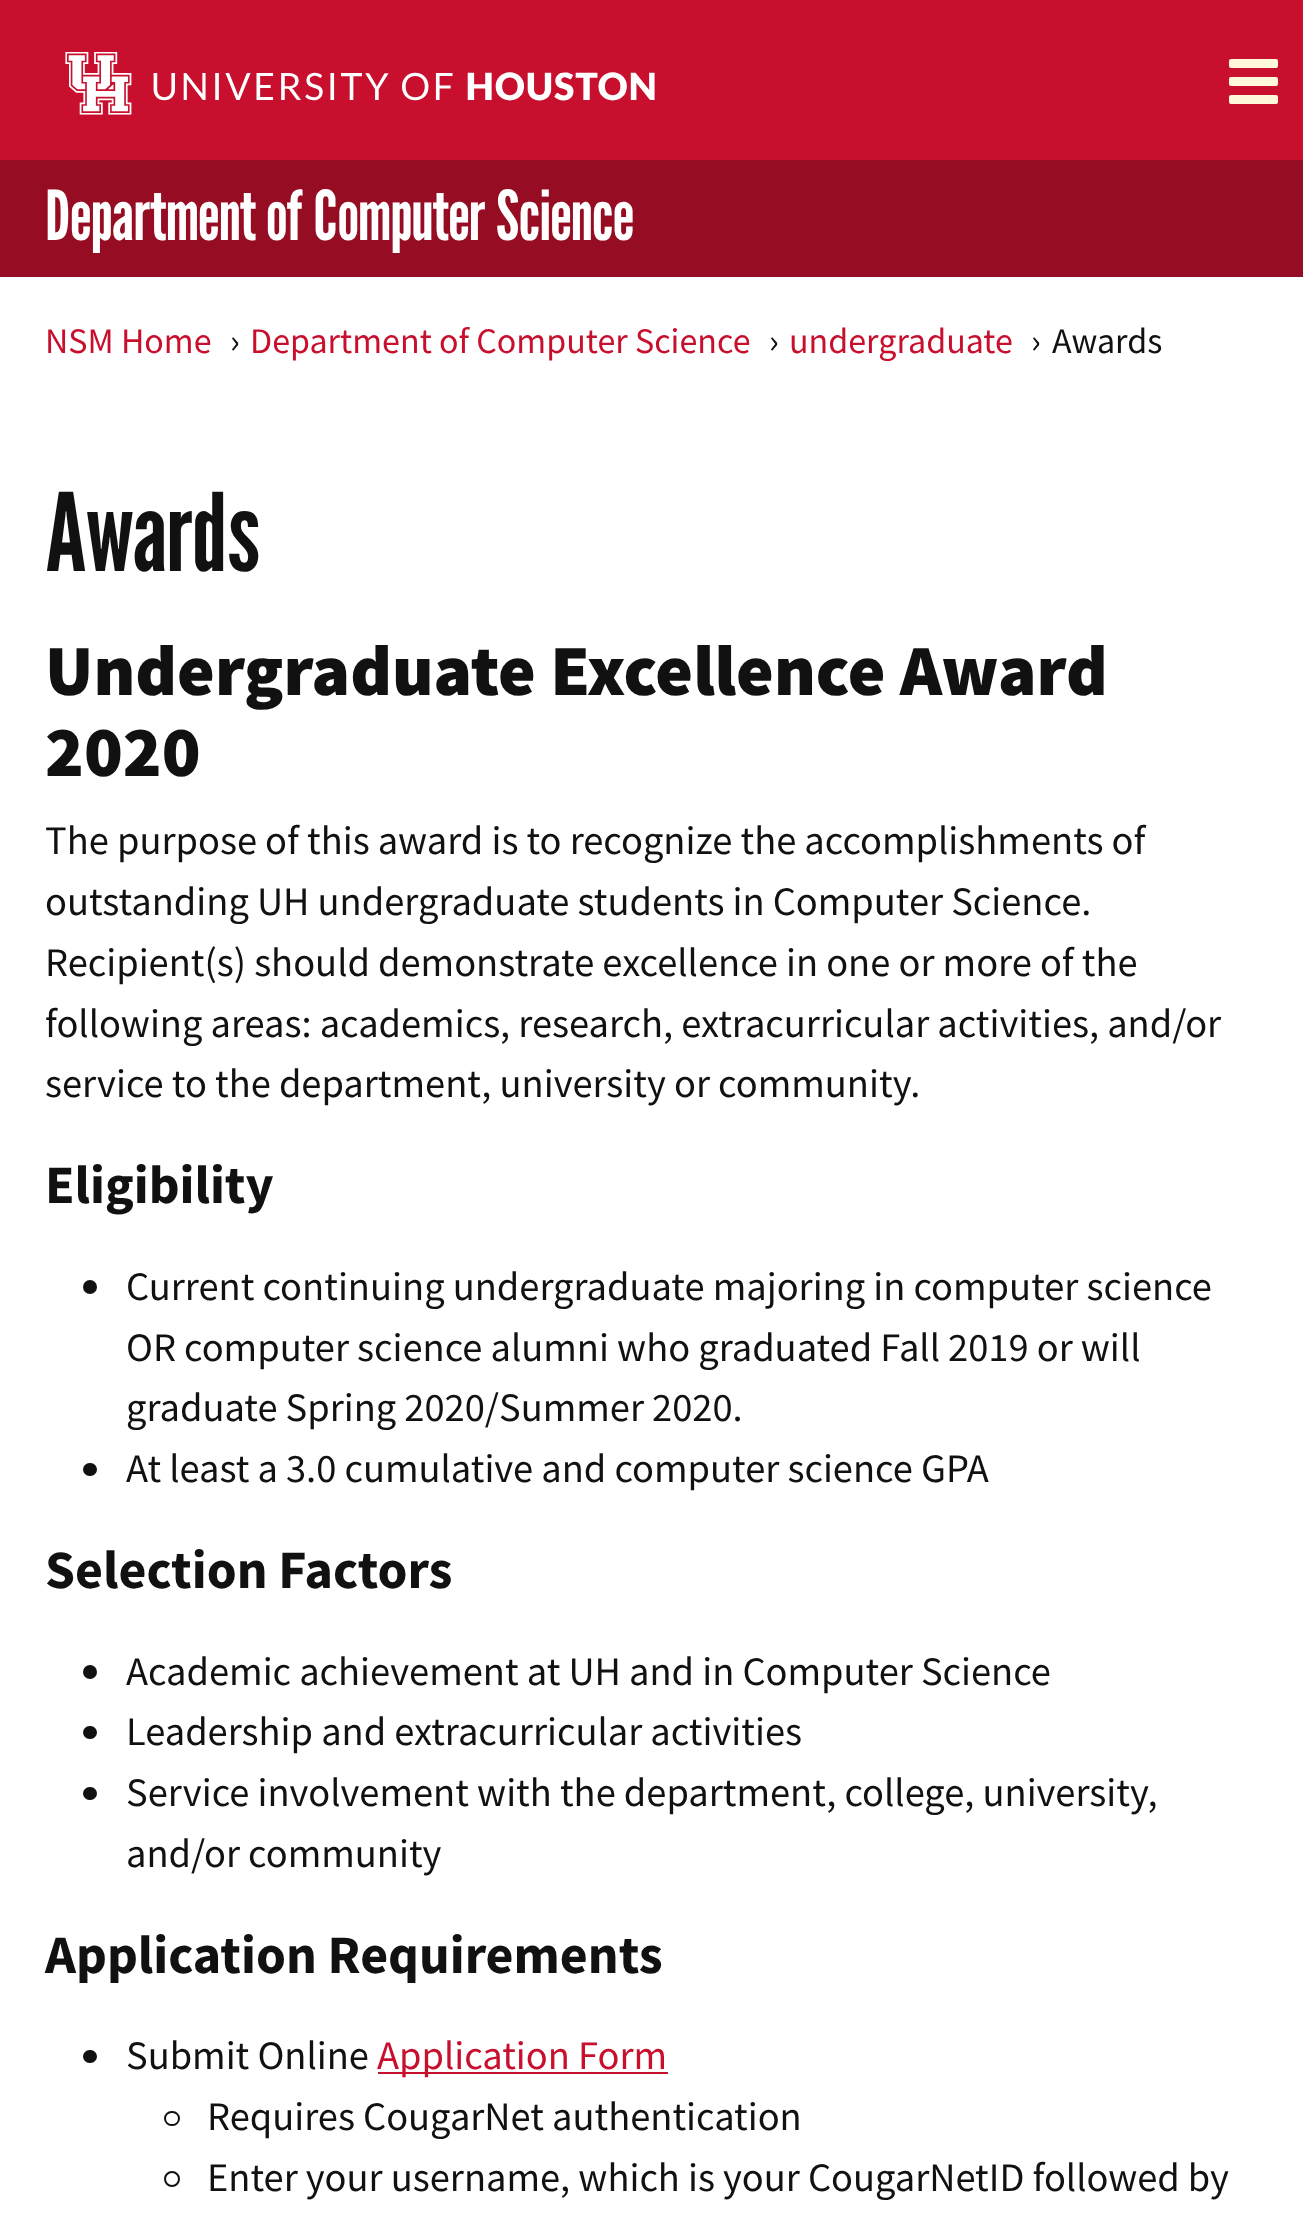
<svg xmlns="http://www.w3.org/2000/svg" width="1303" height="2213">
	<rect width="100%" height="100%" fill="#FFFFFF" />
	<rect x="0" y="0" width="1303" height="160" fill="#C8102E" />
	<image x="65" y="52" width="590" height="63" href="assets/img1.png" />
	<rect x="1229" y="59" width="49" height="9" rx="2" fill="#FFF9D9" />
	<rect x="1229" y="77" width="49" height="9" rx="2" fill="#FFF9D9" />
	<rect x="1229" y="95" width="49" height="9" rx="2" fill="#FFF9D9" />
	<rect x="0" y="160" width="1303" height="117" fill="#960C22" />
	<text x="45" y="240" font-family="League Gothic" font-size="68.75" fill="#FFFFFF">Department of Computer Science</text>
	<text x="45" y="353" font-family="Source Sans Pro" font-size="36" fill="#C8102E">NSM Home</text>
	<text x="230" y="353" font-family="Source Sans Pro" font-size="36" fill="#111111">›</text>
	<text x="250" y="353" font-family="Source Sans Pro" font-size="36" fill="#C8102E">Department of Computer Science</text>
	<text x="769" y="353" font-family="Source Sans Pro" font-size="36" fill="#111111">›</text>
	<text x="789" y="353" font-family="Source Sans Pro" font-size="36" fill="#C8102E">undergraduate</text>
	<g font-family="Source Sans Pro" font-size="36" fill="#111111">
		<text x="1031" y="353">›</text>
		<text x="1052" y="353">Awards</text>
	</g>
	<text x="45" y="571" font-family="League Gothic" font-size="108" fill="#111111">Awards</text>
	<g font-family="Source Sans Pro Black" font-size="72" font-weight="900" fill="#111111">
		<text x="45" y="695">Undergraduate Excellence Award</text>
		<text x="45" y="776">2020</text>
	</g>
	<g font-family="'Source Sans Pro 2'" font-size="40.5" fill="#111111">
		<text x="45" y="854">The purpose of this award is to recognize the accomplishments of</text>
		<text x="45" y="915">outstanding UH undergraduate students in Computer Science.</text>
		<text x="45" y="976">Recipient(s) should demonstrate excellence in one or more of the</text>
		<text x="45" y="1037">following areas: academics, research, extracurricular activities, and/or</text>
		<text x="45" y="1097">service to the department, university or community.</text>
	</g>
	<text x="45" y="1203" font-family="Source Sans Pro" font-size="54" font-weight="700" fill="#111111">Eligibility</text>
	<circle cx="90" cy="1287" r="7" fill="#111111" />
	<g font-family="'Source Sans Pro 2'" font-size="40.5" fill="#111111">
		<text x="126" y="1300">Current continuing undergraduate majoring in computer science</text>
		<text x="126" y="1361">OR computer science alumni who graduated Fall 2019 or will</text>
		<text x="126" y="1421">graduate Spring 2020/Summer 2020.</text>
	</g>
	<rect x="83" y="1463" width="14" height="13" rx="6.5" fill="#111111" />
	<text x="126" y="1482" font-family="'Source Sans Pro 2'" font-size="40.5" fill="#111111">At least a 3.0 cumulative and computer science GPA</text>
	<text x="45" y="1588" font-family="Source Sans Pro" font-size="54" font-weight="700" fill="#111111">Selection Factors</text>
	<circle cx="90" cy="1672" r="7" fill="#111111" />
	<text x="126" y="1685" font-family="'Source Sans Pro 2'" font-size="40.5" fill="#111111">Academic achievement at UH and in Computer Science</text>
	<rect x="83" y="1726" width="14" height="13" rx="6.5" fill="#111111" />
	<text x="126" y="1745" font-family="'Source Sans Pro 2'" font-size="40.5" fill="#111111">Leadership and extracurricular activities</text>
	<rect x="83" y="1787" width="14" height="13" rx="6.5" fill="#111111" />
	<g font-family="'Source Sans Pro 2'" font-size="40.5" fill="#111111">
		<text x="126" y="1806">Service involvement with the department, college, university,</text>
		<text x="126" y="1867">and/or community</text>
	</g>
	<text x="45" y="1973" font-family="Source Sans Pro" font-size="54" font-weight="700" fill="#111111">Application Requirements</text>
	<rect x="83" y="2050" width="14" height="13" rx="6.5" fill="#111111" />
	<text x="126" y="2069" font-family="'Source Sans Pro 2'" font-size="40.5" fill="#111111">Submit Online</text>
	<rect x="378" y="2072" width="290" height="2" fill="#C8102E" />
	<text x="377" y="2069" font-family="'Source Sans Pro 2'" font-size="40.5" fill="#C8102E">Application Form</text>
	<rect x="165" y="2112" width="14" height="13" rx="6.5" fill="none" stroke="#111111" stroke-width="2" />
	<text x="207" y="2130" font-family="'Source Sans Pro 2'" font-size="40.5" fill="#111111">Requires CougarNet authentication</text>
	<circle cx="172" cy="2179" r="7" fill="none" stroke="#111111" stroke-width="2" />
	<text x="207" y="2191" font-family="'Source Sans Pro 2'" font-size="40.5" fill="#111111">Enter your username, which is your CougarNetID followed by</text>
</svg>
